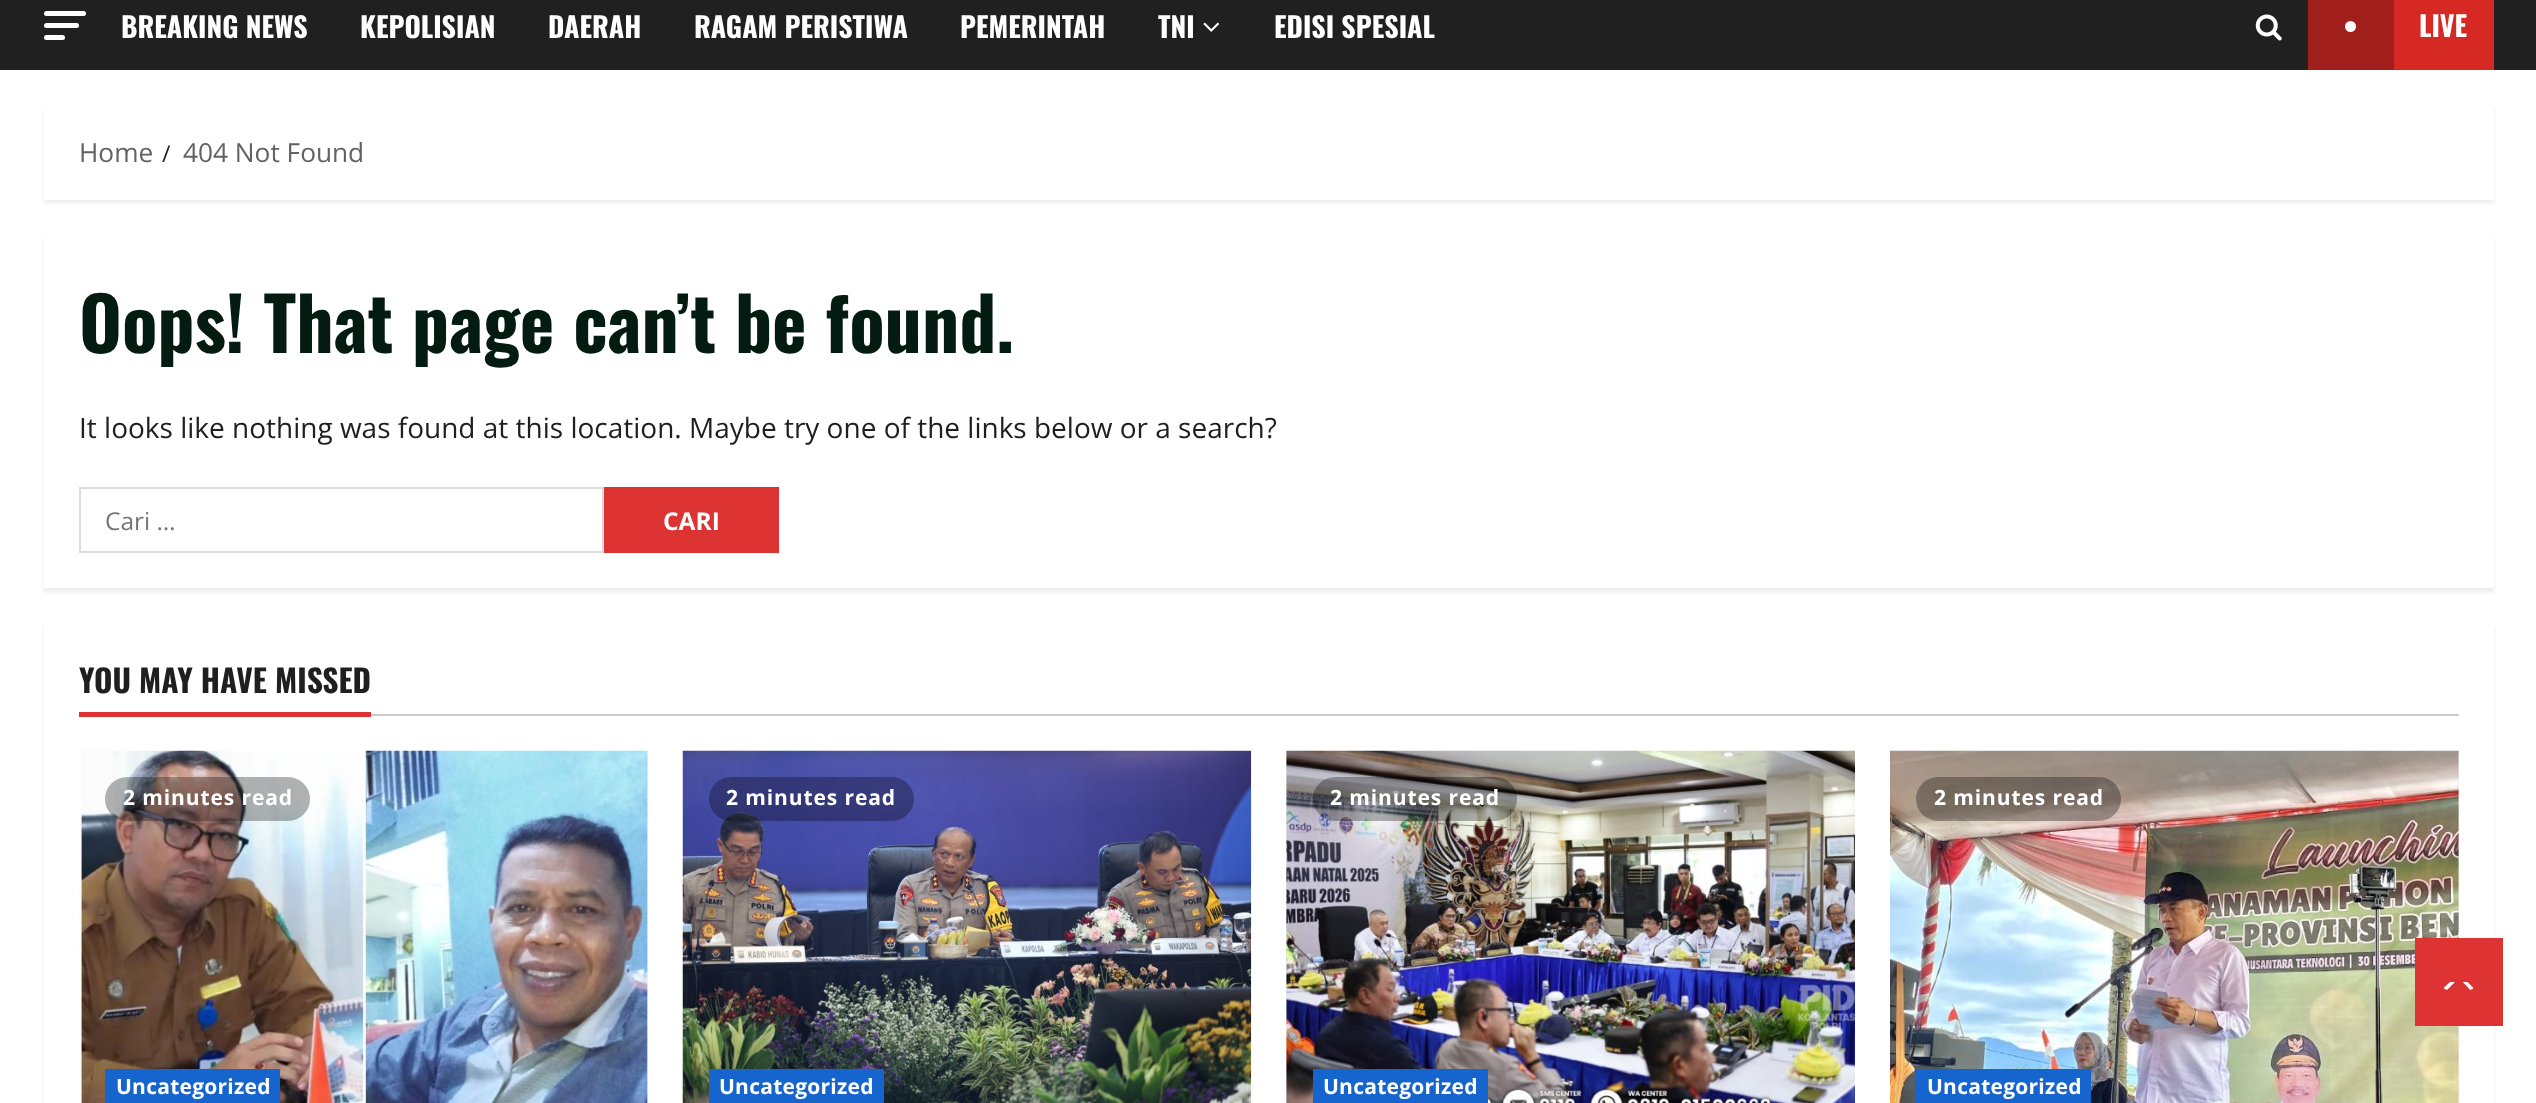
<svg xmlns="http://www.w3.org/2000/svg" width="2536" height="1103">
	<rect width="100%" height="100%" fill="#FFFFFF" />
	<rect x="0" y="0" width="2536" height="70" fill="#202020" />
	<rect x="44" y="11" width="42" height="5" rx="2.5" fill="#FFFFFF" />
	<rect x="44" y="23" width="35" height="5" rx="2.5" fill="#FFFFFF" />
	<rect x="44" y="35" width="21" height="5" rx="2.5" fill="#FFFFFF" />
	<g font-family="Oswald" font-size="28" font-weight="700" fill="#FFFFFF">
		<text x="121" y="38">BREAKING NEWS</text>
		<text x="360" y="38">KEPOLISIAN</text>
		<text x="548" y="38">DAERAH</text>
		<text x="694" y="38">RAGAM PERISTIWA</text>
		<text x="960" y="38">PEMERINTAH</text>
		<text x="1158" y="38">TNI</text>
	</g>
	<image x="1203" y="22" width="16" height="10" href="assets/img1.png" />
	<text x="1274" y="38" font-family="Oswald" font-size="28" font-weight="700" fill="#FFFFFF">EDISI SPESIAL</text>
	<image x="2255" y="14" width="27" height="27" href="assets/img2.png" />
	<rect x="2394" y="0" width="100" height="70" fill="#D72924" />
	<rect x="2308" y="0" width="86" height="70" fill="#A11F1B" />
	<circle cx="2350.5" cy="26.5" r="5.5" fill="#FFFFFF" />
	<text x="2419" y="37" font-family="Oswald" font-size="28" font-weight="700" fill="#FFFFFF">LIVE</text>
	<rect x="44" y="109" width="2450" height="94" fill="#000000" fill-opacity="0.08" filter="blur(2px)" />
	<rect x="44" y="107" width="2450" height="93" fill="#FFFFFF" />
	<text x="79" y="162" font-family="Open Sans" font-size="26.25" fill="#626262">Home</text>
	<text x="162" y="162" font-family="Open Sans" font-size="23" fill="#1F1F1F">/</text>
	<text x="183" y="162" font-family="Open Sans" font-size="26.25" fill="#626262">404 Not Found</text>
	<rect x="44" y="238" width="2450" height="354" fill="#000000" fill-opacity="0.08" filter="blur(2px)" />
	<rect x="44" y="236" width="2450" height="352" fill="#FFFFFF" />
	<text x="79" y="353" font-family="Oswald" font-size="73.5" font-weight="700" fill="#031B11">Oops! That page can’t be found.</text>
	<text x="79" y="438" font-family="Open Sans" font-size="28" fill="#1F1F1F">It looks like nothing was found at this location. Maybe try one of the links below or a search?</text>
	<rect x="80" y="488" width="523" height="64" fill="none" stroke="#DCDCDC" stroke-width="2" />
	<text x="105" y="530" font-family="Open Sans" font-size="24.5" fill="#757575">Cari …</text>
	<rect x="604" y="487" width="175" height="66" fill="#DD3333" />
	<text x="663" y="530" font-family="Open Sans" font-size="24.5" font-weight="700" fill="#FFFFFF">CARI</text>
	<rect x="44" y="627" width="2450" height="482" fill="#000000" fill-opacity="0.08" filter="blur(2px)" />
	<rect x="44" y="625" width="2450" height="478" fill="#FFFFFF" />
	<rect x="371" y="714" width="2088" height="2" fill="#CCCCCC" />
	<text x="79" y="693" font-family="Oswald" font-size="31.5" font-weight="700" fill="#1F1F1F">YOU MAY HAVE MISSED</text>
	<rect x="79" y="712" width="292" height="5" fill="#DD3333" />
	<rect x="647" y="751" width="1" height="352" fill="#ECECEC" />
	<image x="79" y="750" width="569" height="353" href="assets/img3.png" />
	<rect x="105" y="777" width="205" height="44" rx="22" fill="#000000" fill-opacity="0.3" />
	<text x="123" y="805" font-family="Open Sans" font-size="21" font-weight="700" letter-spacing="0.9" fill="#FFFFFF">2 minutes read</text>
	<rect x="105" y="1069" width="175" height="34" fill="#1665CF" />
	<text x="116" y="1094" font-family="Open Sans" font-size="21" font-weight="700" letter-spacing="0.25" fill="#FFFFFF">Uncategorized</text>
	<image x="682" y="750" width="570" height="353" href="assets/img4.png" />
	<rect x="709" y="777" width="205" height="44" rx="22" fill="#000000" fill-opacity="0.3" />
	<text x="726" y="805" font-family="Open Sans" font-size="21" font-weight="700" letter-spacing="0.9" fill="#FFFFFF">2 minutes read</text>
	<rect x="709" y="1069" width="175" height="34" fill="#1665CF" />
	<text x="719" y="1094" font-family="Open Sans" font-size="21" font-weight="700" letter-spacing="0.25" fill="#FFFFFF">Uncategorized</text>
	<rect x="1286" y="751" width="1" height="352" fill="#ECECEC" />
	<image x="1286" y="750" width="569" height="353" href="assets/img5.png" />
	<rect x="1313" y="777" width="204" height="44" rx="22" fill="#000000" fill-opacity="0.3" />
	<text x="1330" y="805" font-family="Open Sans" font-size="21" font-weight="700" letter-spacing="0.9" fill="#FFFFFF">2 minutes read</text>
	<rect x="1313" y="1069" width="175" height="34" fill="#1665CF" />
	<text x="1323" y="1094" font-family="Open Sans" font-size="21" font-weight="700" letter-spacing="0.25" fill="#FFFFFF">Uncategorized</text>
	<rect x="2458" y="751" width="1" height="352" fill="#ECECEC" />
	<image x="1890" y="750" width="569" height="353" href="assets/img6.png" />
	<rect x="1916" y="777" width="205" height="44" rx="22" fill="#000000" fill-opacity="0.3" />
	<text x="1934" y="805" font-family="Open Sans" font-size="21" font-weight="700" letter-spacing="0.9" fill="#FFFFFF">2 minutes read</text>
	<rect x="1916" y="1069" width="175" height="34" fill="#1665CF" />
	<text x="1927" y="1094" font-family="Open Sans" font-size="21" font-weight="700" letter-spacing="0.25" fill="#FFFFFF">Uncategorized</text>
	<rect x="2415" y="938" width="88" height="88" fill="#DD3333" />
	<path d="M2450 990.5H2467.5C2470 990.5 2472 989.5 2473.5 988L2467.5 982H2450L2443.5 988C2445.5 989.5 2447.5 990.5 2450 990.5Z" fill="#FFFFFF" />
	<path d="M2476 996H2441L2459 978Z" fill="#DD3333" />
</svg>
